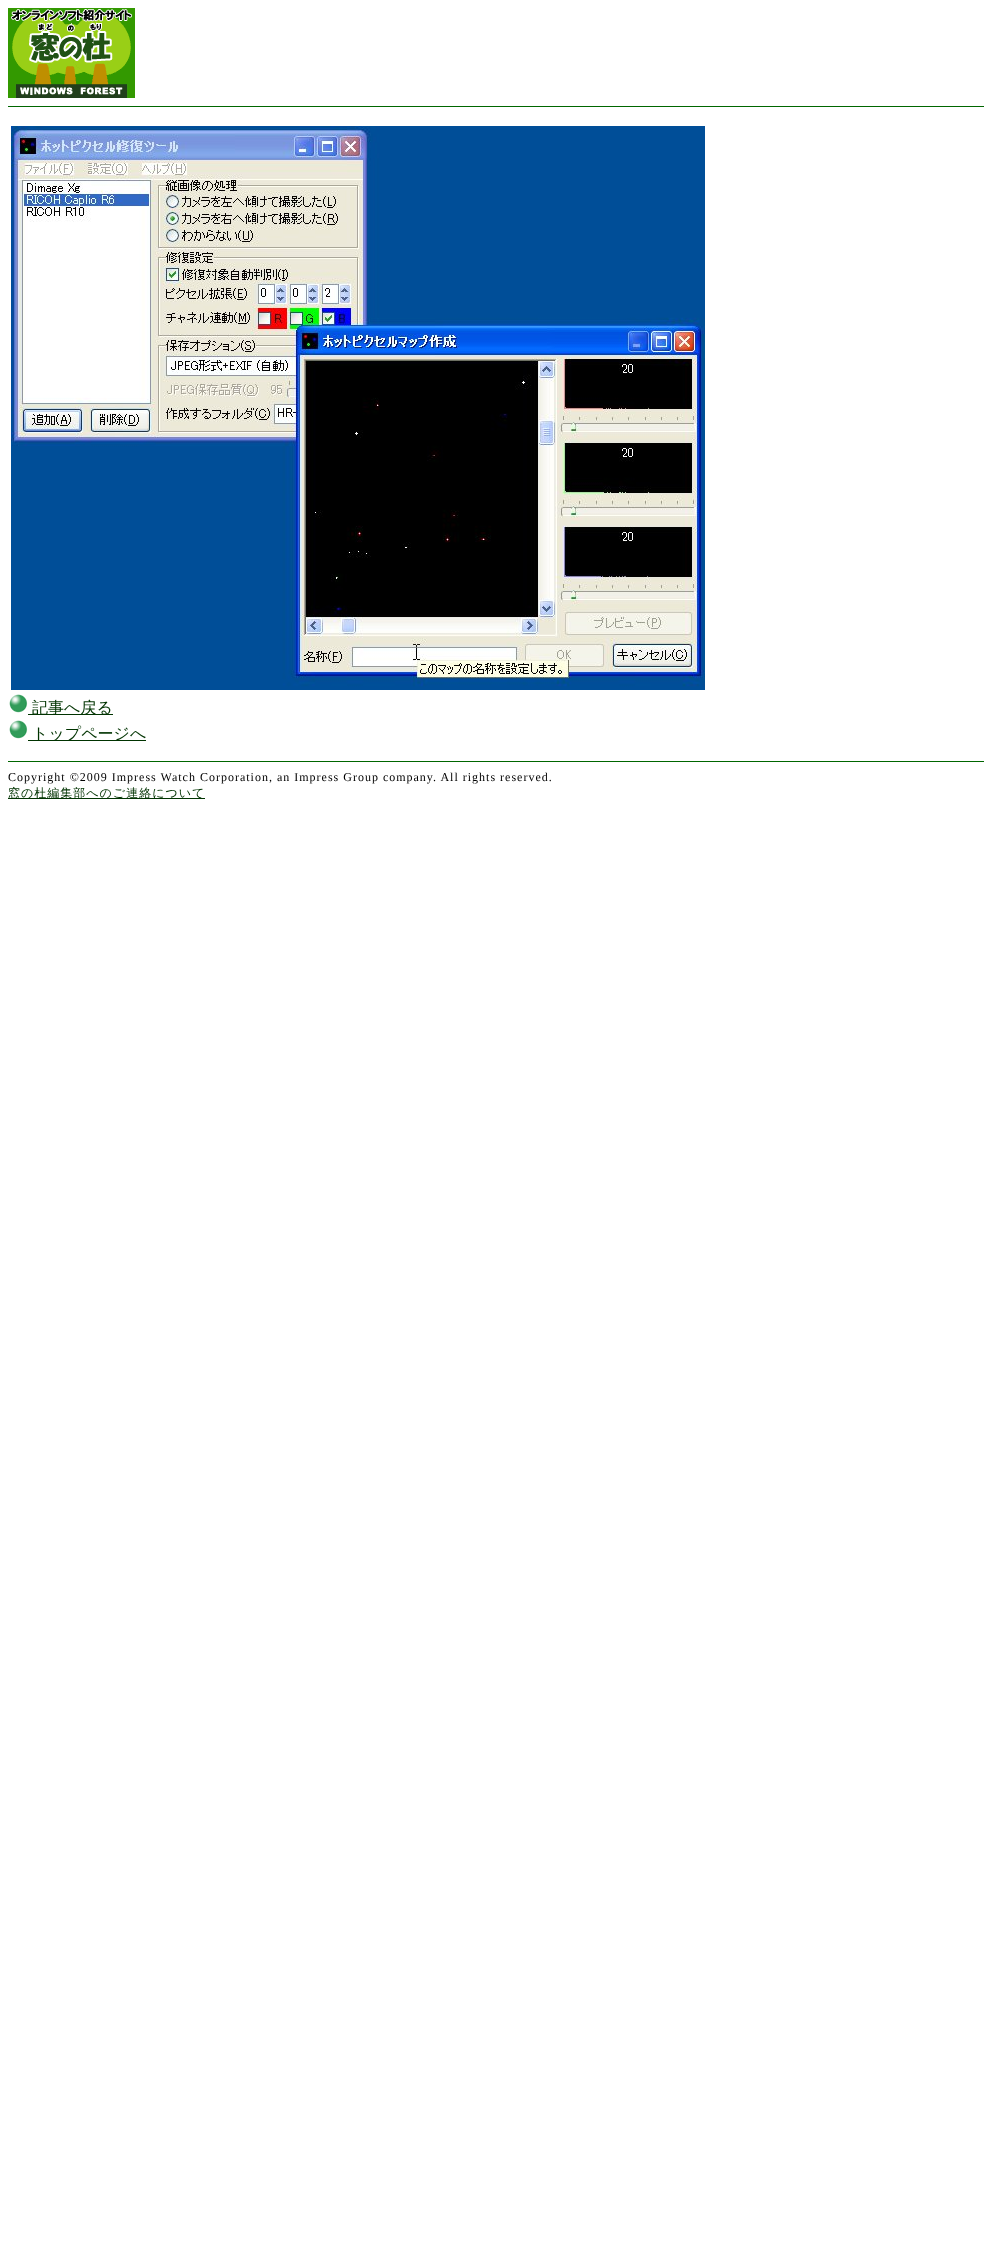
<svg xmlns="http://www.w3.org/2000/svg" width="992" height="2260">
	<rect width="100%" height="100%" fill="#FFFFFF" />
	<image x="8" y="8" width="127" height="90" href="assets/img1.png" />
	<rect x="8" y="106" width="976" height="1" fill="#006600" />
	<image x="11" y="126" width="694" height="564" href="assets/img2.png" />
	<image x="9" y="694" width="19" height="19" href="assets/img3.png" />
	<rect x="28" y="714" width="85" height="1" fill="#003300" />
	<text x="32" y="713" font-family="WenQuanYi Zen Hei" font-size="16" font-weight="500" fill="#003300">記事へ戻る</text>
	<image x="9" y="720" width="19" height="19" href="assets/img3.png" />
	<rect x="28" y="740" width="118" height="1" fill="#003300" />
	<text x="32" y="739" font-family="WenQuanYi Zen Hei" font-size="16" font-weight="500" fill="#003300">トップページへ</text>
	<rect x="8" y="761" width="976" height="1" fill="#006600" />
	<text x="8" y="781" font-family="Liberation Serif" font-size="12" letter-spacing="1" fill="#000000">Copyright ©2009 Impress Watch Corporation, an Impress Group company. All rights reserved.</text>
	<rect x="8" y="798" width="197" height="1" fill="#003300" />
	<text x="8" y="797" font-family="WenQuanYi Zen Hei" font-size="12" font-weight="500" letter-spacing="1" fill="#003300">窓の杜編集部へのご連絡について</text>
</svg>
